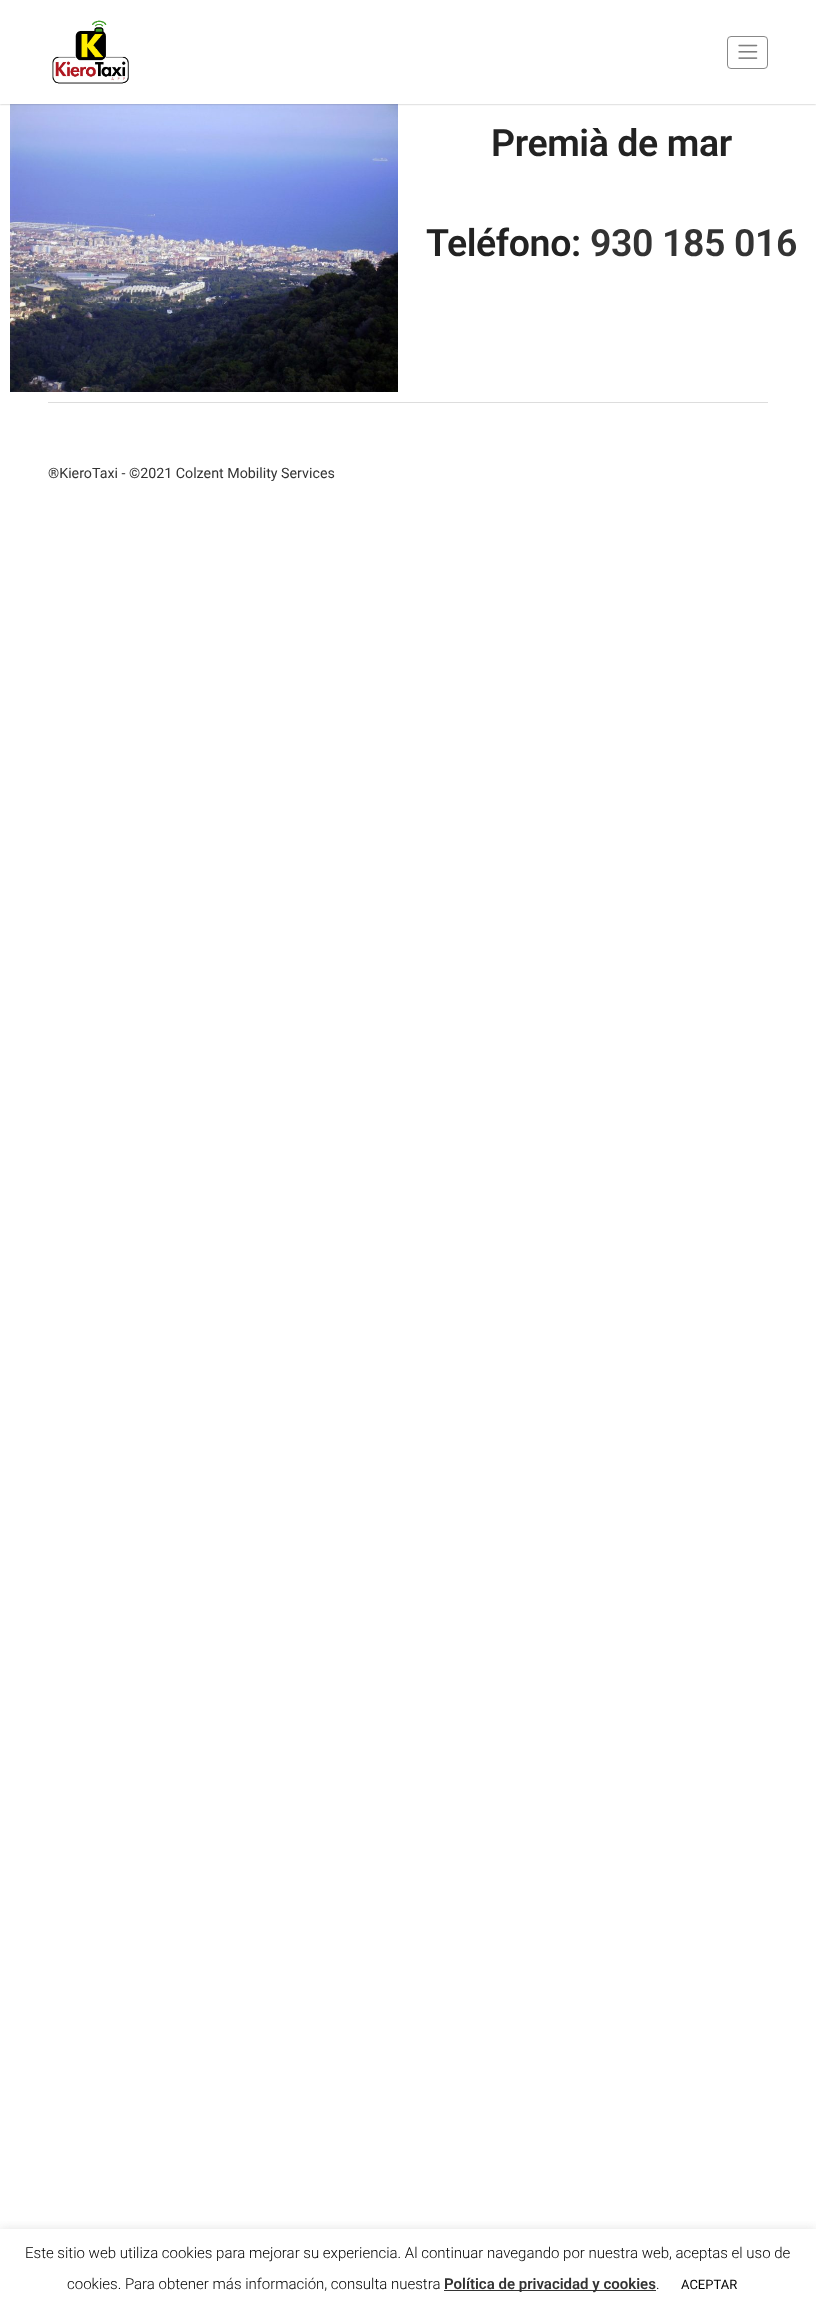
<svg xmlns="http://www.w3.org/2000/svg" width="816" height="2312">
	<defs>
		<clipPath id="clip1"><rect x="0" y="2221" width="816" height="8" /></clipPath>
	</defs>
	<rect width="100%" height="100%" fill="#FFFFFF" />
	<image x="10" y="104" width="388" height="288" href="assets/img3.png" />
	<rect x="0" y="0" width="816" height="104" fill="#323232" fill-opacity="0.4" filter="blur(1px)" />
	<rect x="0" y="0" width="816" height="104" fill="#FFFFFF" />
	<image x="52" y="20" width="77" height="64" href="assets/img1.png" />
	<rect x="727.5" y="36.5" width="40" height="32" rx="3.5" fill="none" stroke="#888888" />
	<image x="738" y="44" width="20" height="15" href="assets/img2.png" />
	<g font-family="Roboto" font-size="37.5" font-weight="600" letter-spacing="-0.4" fill="#222222">
		<text x="491" y="156">Premià de mar</text>
		<text x="426" y="256">Teléfono:</text>
	</g>
	<text x="590" y="256" font-family="Roboto" font-size="37.5" font-weight="600" letter-spacing="-0.4" fill="#333333">930 185 016</text>
	<rect x="48" y="402" width="720" height="1" fill="#DDDDDD" />
	<text x="48" y="478" font-family="Roboto" font-size="14.25" fill="#333333">®KieroTaxi - ©2021 Colzent Mobility Services</text>
	<g clip-path="url(#clip1)">
		<rect x="0" y="2228" width="816" height="83" fill="#ACABAB" fill-opacity="0.3" filter="blur(5px)" />
	</g>
	<g font-family="Roboto" font-size="15" font-weight="300" fill="#000000">
		<text x="25" y="2258">Este sitio web utiliza cookies para mejorar su experiencia. Al continuar navegando por nuestra web, aceptas el uso de</text>
		<text x="67" y="2289">cookies. Para obtener más información, consulta nuestra</text>
	</g>
	<rect x="444" y="2290" width="212" height="1" fill="#333333" />
	<text x="444" y="2289" font-family="Roboto" font-size="15" font-weight="600" fill="#333333">Política de privacidad y cookies</text>
	<text x="656" y="2289" font-family="Roboto" font-size="15" font-weight="300" fill="#000000">.</text>
	<text x="681" y="2289" font-family="Roboto" font-size="13" fill="#000000">ACEPTAR</text>
</svg>
